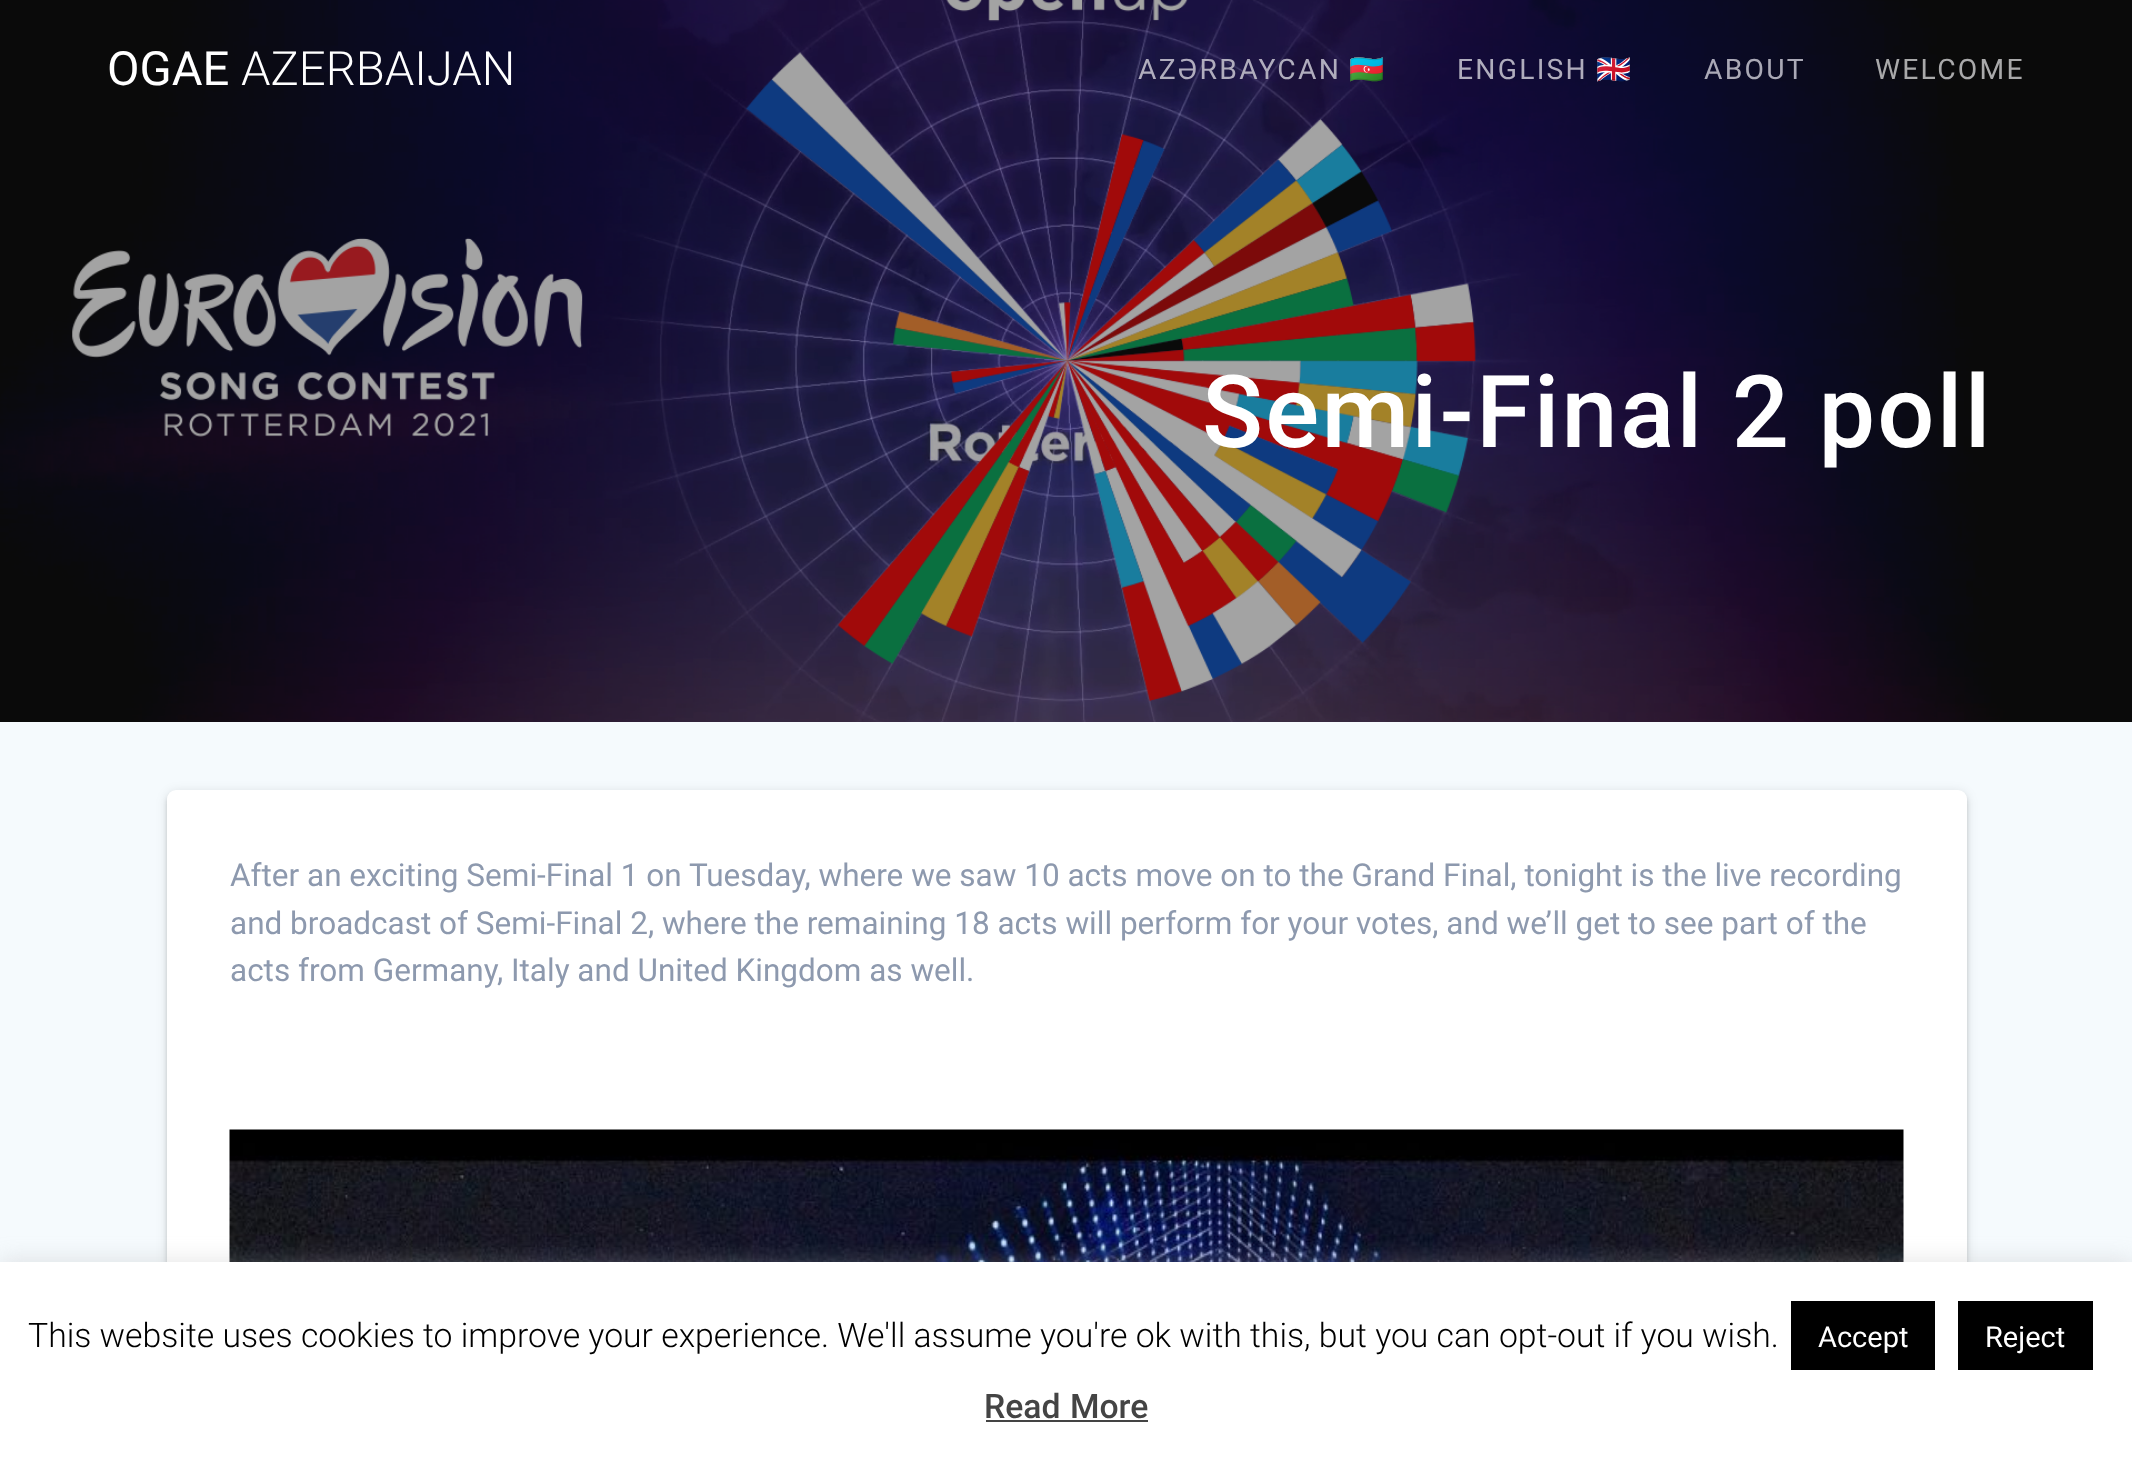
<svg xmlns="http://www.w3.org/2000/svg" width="2132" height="1458">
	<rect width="100%" height="100%" fill="#FFFFFF" />
	<image x="0" y="0" width="2132" height="722" href="assets/img1.png" />
	<text x="107" y="85" font-family="Roboto" font-size="47.25" fill="#FFFFFF">OGAE</text>
	<text x="241" y="85" font-family="Roboto" font-size="47.25" font-weight="300" fill="#FFFFFF">AZERBAIJAN</text>
	<text x="1138" y="79" font-family="Roboto" font-size="28.25" letter-spacing="2.25" fill="#B0ADBD">AZƏRBAYCAN</text>
	<text x="1349" y="79" font-family="Noto Color Emoji" font-size="28.25" letter-spacing="2.25" fill="#B0ADBD">🇦🇿</text>
	<text x="1457" y="79" font-family="Roboto" font-size="28.25" letter-spacing="2.25" fill="#B0ADBD">ENGLISH</text>
	<text x="1596" y="79" font-family="Noto Color Emoji" font-size="28.25" letter-spacing="2.25" fill="#AAA9B6">🇬🇧</text>
	<text x="1704" y="79" font-family="Roboto" font-size="28.25" letter-spacing="2.25" fill="#AAA9B6">ABOUT</text>
	<text x="1875" y="79" font-family="Roboto" font-size="28.25" letter-spacing="2.25" fill="#A9A9AA">WELCOME</text>
	<text x="1202" y="447" font-family="Roboto" font-size="100.75" font-weight="500" letter-spacing="2.25" fill="#FFFFFF">Semi-Final 2 poll</text>
	<rect x="0" y="722" width="2132" height="540" fill="#F5FAFD" />
	<rect x="167" y="792" width="1800" height="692" rx="9" fill="#000000" fill-opacity="0.12" filter="blur(5.5px)" />
	<rect x="167" y="794" width="1800" height="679" rx="9" fill="#000000" fill-opacity="0.14" filter="blur(2px)" />
	<rect x="167" y="790" width="1800" height="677" rx="9" fill="#FFFFFF" />
	<g font-family="Roboto" font-size="31.5" fill="#8D99AE">
		<text x="230" y="886">After an exciting Semi-Final 1 on Tuesday, where we saw 10 acts move on to the Grand Final, tonight is the live recording</text>
		<text x="230" y="934">and broadcast of Semi-Final 2, where the remaining 18 acts will perform for your votes, and we’ll get to see part of the</text>
		<text x="230" y="981">acts from Germany, Italy and United Kingdom as well.</text>
	</g>
	<image x="229" y="1129" width="1675" height="133" href="assets/img2.png" />
	<rect x="0" y="1260" width="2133" height="196" fill="#ACABAB" fill-opacity="0.3" filter="blur(11px)" />
	<rect x="0" y="1262" width="2132" height="196" fill="#FFFFFF" />
	<text x="28" y="1347" font-family="Roboto" font-size="33.75" font-weight="300" fill="#000000">This website uses cookies to improve your experience. We'll assume you're ok with this, but you can opt-out if you wish.</text>
	<rect x="1791" y="1301" width="144" height="69" fill="#000000" />
	<text x="1818" y="1347" font-family="Roboto" font-size="29" fill="#FFFFFF">Accept</text>
	<rect x="1958" y="1301" width="135" height="69" fill="#000000" />
	<text x="1985" y="1347" font-family="Roboto" font-size="29" fill="#FFFFFF">Reject</text>
	<text x="984" y="1418" word-spacing="1" font-family="Roboto" font-size="33.75" font-weight="500" fill="#444444">Read More</text>
	<rect x="986" y="1420" width="162" height="2" fill="#444444" />
</svg>
